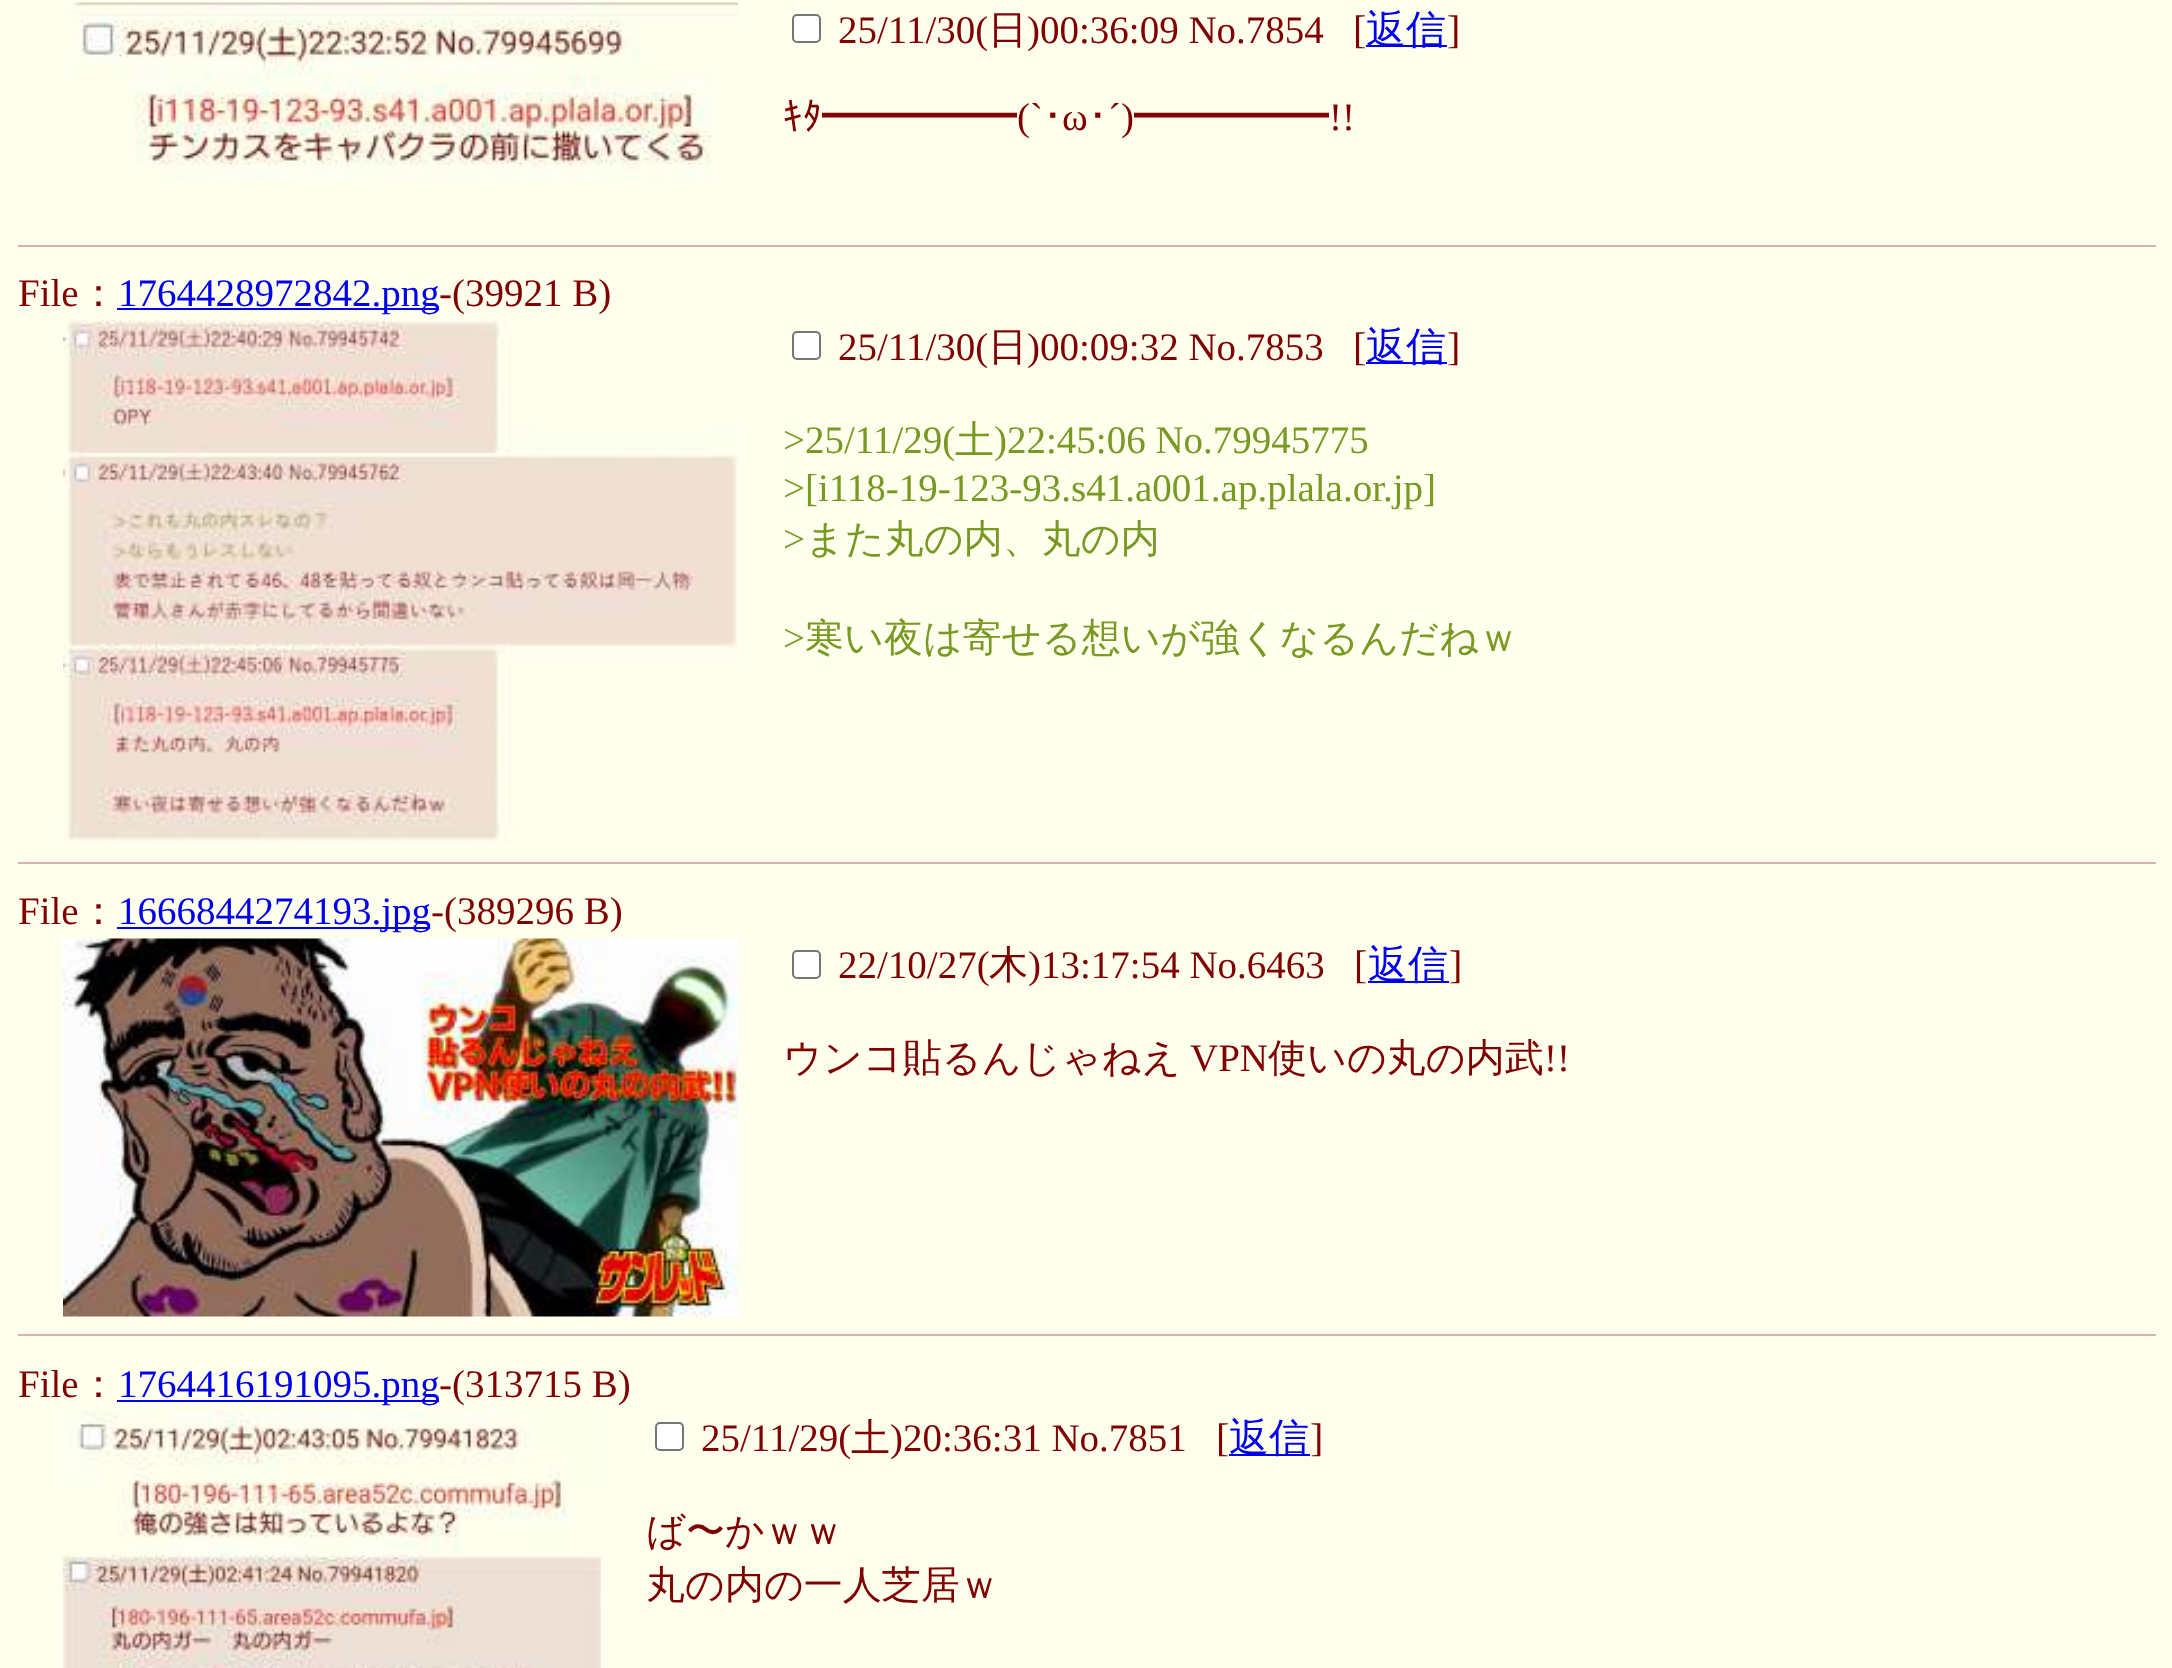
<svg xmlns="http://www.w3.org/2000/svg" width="2172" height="1668">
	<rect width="100%" height="100%" fill="#FFFFEE" />
	<image x="70" y="2" width="668" height="178" href="assets/img1.png" />
	<rect x="793" y="15" width="27" height="27" rx="4" fill="#FFFFFF" stroke="#767676" stroke-width="2" />
	<text x="838" y="43" font-family="Liberation Serif" font-size="39" fill="#800000">25/11/30(</text>
	<text x="988" y="43" font-family="WenQuanYi Zen Hei" font-size="39" font-weight="500" fill="#800000">日</text>
	<text x="1027" y="43" font-family="Liberation Serif" font-size="39" fill="#800000">)00:36:09 No.7854</text>
	<text x="1353" y="43" font-family="Liberation Serif" font-size="40" fill="#800000">[</text>
	<rect x="1366" y="45" width="81" height="2" fill="#0000EE" />
	<text x="1366" y="43" font-family="WenQuanYi Zen Hei" font-size="40" font-weight="500" fill="#0000EE">返信</text>
	<text x="1447" y="43" font-family="Liberation Serif" font-size="40" fill="#800000">]</text>
	<text x="783" y="130" font-family="IPAGothic" font-size="39" fill="#800000">ｷﾀ━━━━━</text>
	<text x="1017" y="130" font-family="Liberation Serif" font-size="39" fill="#800000">(`</text>
	<text x="1043" y="130" font-family="IPAGothic" font-size="39" fill="#800000">･</text>
	<text x="1062" y="130" font-family="Liberation Serif" font-size="39" fill="#800000">ω</text>
	<text x="1088" y="130" font-family="IPAGothic" font-size="39" fill="#800000">･</text>
	<text x="1108" y="130" font-family="Liberation Serif" font-size="39" fill="#800000">´)</text>
	<text x="1134" y="130" font-family="IPAGothic" font-size="39" fill="#800000">━━━━━</text>
	<text x="1329" y="130" font-family="Liberation Serif" font-size="39" fill="#800000">!!</text>
	<rect x="18" y="245" width="2138" height="2" fill="#D8B1B1" />
	<text x="18" y="306" font-family="Liberation Serif" font-size="39" fill="#800000">File</text>
	<text x="79" y="306" font-family="WenQuanYi Zen Hei" font-size="39" font-weight="500" fill="#800000">：</text>
	<rect x="117" y="308" width="322" height="2" fill="#0000EE" />
	<text x="118" y="306" font-family="Liberation Serif" font-size="39" fill="#0000EE">1764428972842.png</text>
	<text x="439" y="306" font-family="Liberation Serif" font-size="39" fill="#800000">-(39921 B)</text>
	<image x="63" y="319" width="675" height="523" href="assets/img2.png" />
	<rect x="793" y="332" width="27" height="27" rx="4" fill="#FFFFFF" stroke="#767676" stroke-width="2" />
	<text x="838" y="360" font-family="Liberation Serif" font-size="39" fill="#800000">25/11/30(</text>
	<text x="988" y="360" font-family="WenQuanYi Zen Hei" font-size="39" font-weight="500" fill="#800000">日</text>
	<text x="1027" y="360" font-family="Liberation Serif" font-size="39" fill="#800000">)00:09:32 No.7853</text>
	<text x="1353" y="360" font-family="Liberation Serif" font-size="40" fill="#800000">[</text>
	<rect x="1366" y="362" width="81" height="2" fill="#0000EE" />
	<text x="1366" y="360" font-family="WenQuanYi Zen Hei" font-size="40" font-weight="500" fill="#0000EE">返信</text>
	<text x="1447" y="360" font-family="Liberation Serif" font-size="40" fill="#800000">]</text>
	<text x="783" y="453" font-family="Liberation Serif" font-size="39" fill="#789922">&gt;25/11/29(</text>
	<text x="955" y="453" font-family="WenQuanYi Zen Hei" font-size="39" font-weight="500" fill="#789922">土</text>
	<g font-family="Liberation Serif" font-size="39" fill="#789922">
		<text x="994" y="453">)22:45:06 No.79945775</text>
		<text x="783" y="501">&gt;[i118-19-123-93.s41.a001.ap.plala.or.jp]</text>
		<text x="783" y="552">&gt;</text>
	</g>
	<text x="805" y="552" font-family="WenQuanYi Zen Hei" font-size="39" font-weight="500" fill="#789922">また丸の内、丸の内</text>
	<text x="783" y="651" font-family="Liberation Serif" font-size="39" fill="#789922">&gt;</text>
	<text x="805" y="651" font-family="WenQuanYi Zen Hei" font-size="39" font-weight="500" fill="#789922">寒い夜は寄せる想いが強くなるんだねｗ</text>
	<rect x="18" y="862" width="2138" height="2" fill="#D8B1B1" />
	<text x="18" y="924" font-family="Liberation Serif" font-size="39" fill="#800000">File</text>
	<text x="79" y="924" font-family="WenQuanYi Zen Hei" font-size="39" font-weight="500" fill="#800000">：</text>
	<rect x="117" y="927" width="313" height="2" fill="#0000EE" />
	<text x="118" y="924" font-family="Liberation Serif" font-size="39" fill="#0000EE">1666844274193.jpg</text>
	<text x="431" y="924" font-family="Liberation Serif" font-size="39" fill="#800000">-(389296 B)</text>
	<image x="63" y="938" width="675" height="379" href="assets/img3.png" />
	<rect x="793" y="951" width="27" height="27" rx="4" fill="#FFFFFF" stroke="#767676" stroke-width="2" />
	<text x="838" y="978" font-family="Liberation Serif" font-size="39" fill="#800000">22/10/27(</text>
	<text x="989" y="978" font-family="WenQuanYi Zen Hei" font-size="39" font-weight="500" fill="#800000">木</text>
	<text x="1028" y="978" font-family="Liberation Serif" font-size="39" fill="#800000">)13:17:54 No.6463</text>
	<text x="1354" y="978" font-family="Liberation Serif" font-size="40" fill="#800000">[</text>
	<rect x="1368" y="981" width="81" height="2" fill="#0000EE" />
	<text x="1368" y="978" font-family="WenQuanYi Zen Hei" font-size="40" font-weight="500" fill="#0000EE">返信</text>
	<text x="1449" y="978" font-family="Liberation Serif" font-size="40" fill="#800000">]</text>
	<text x="783" y="1071" font-family="WenQuanYi Zen Hei" font-size="39" font-weight="500" fill="#800000">ウンコ貼るんじゃねえ</text>
	<text x="1190" y="1071" font-family="Liberation Serif" font-size="39" fill="#800000">VPN</text>
	<text x="1268" y="1071" font-family="WenQuanYi Zen Hei" font-size="39" font-weight="500" fill="#800000">使いの丸の内武</text>
	<text x="1544" y="1071" font-family="Liberation Serif" font-size="39" fill="#800000">!!</text>
	<rect x="18" y="1334" width="2138" height="2" fill="#D8B1B1" />
	<text x="18" y="1397" font-family="Liberation Serif" font-size="39" fill="#800000">File</text>
	<text x="79" y="1397" font-family="WenQuanYi Zen Hei" font-size="39" font-weight="500" fill="#800000">：</text>
	<rect x="117" y="1400" width="322" height="2" fill="#0000EE" />
	<text x="118" y="1397" font-family="Liberation Serif" font-size="39" fill="#0000EE">1764416191095.png</text>
	<text x="439" y="1397" font-family="Liberation Serif" font-size="39" fill="#800000">-(313715 B)</text>
	<image x="63" y="1411" width="538" height="257" href="assets/img4.png" />
	<rect x="656" y="1423" width="27" height="27" rx="4" fill="#FFFFFF" stroke="#767676" stroke-width="2" />
	<text x="701" y="1451" font-family="Liberation Serif" font-size="39" fill="#800000">25/11/29(</text>
	<text x="851" y="1451" font-family="WenQuanYi Zen Hei" font-size="39" font-weight="500" fill="#800000">土</text>
	<text x="890" y="1451" font-family="Liberation Serif" font-size="39" fill="#800000">)20:36:31 No.7851</text>
	<text x="1216" y="1451" font-family="Liberation Serif" font-size="40" fill="#800000">[</text>
	<rect x="1229" y="1454" width="81" height="2" fill="#0000EE" />
	<text x="1229" y="1451" font-family="WenQuanYi Zen Hei" font-size="40" font-weight="500" fill="#0000EE">返信</text>
	<text x="1310" y="1451" font-family="Liberation Serif" font-size="40" fill="#800000">]</text>
	<g font-family="WenQuanYi Zen Hei" font-size="39" font-weight="500" fill="#800000">
		<text x="646" y="1544">ば〜かｗｗ</text>
		<text x="646" y="1598">丸の内の一人芝居ｗ</text>
	</g>
</svg>
